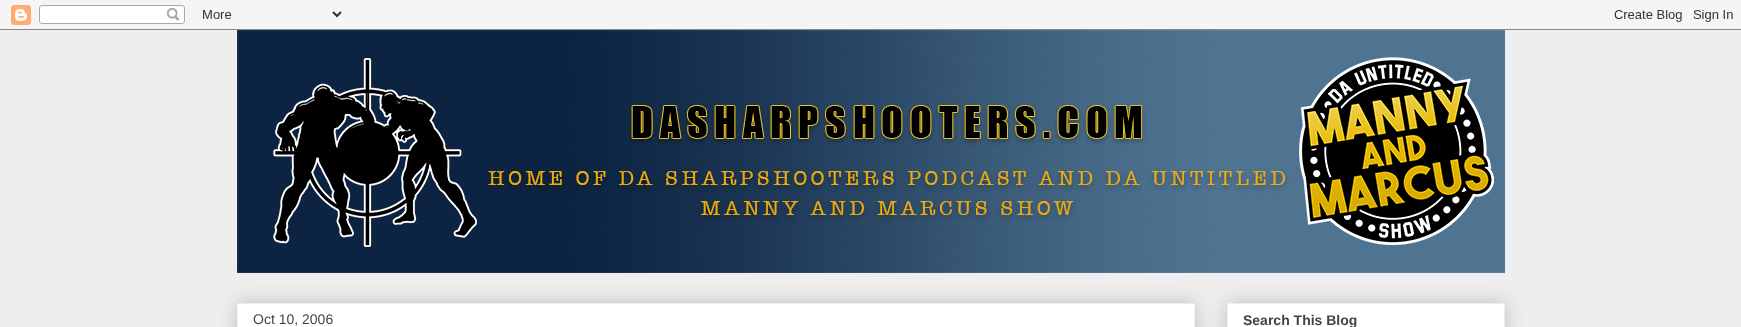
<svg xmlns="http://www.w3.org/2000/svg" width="1741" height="327">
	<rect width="100%" height="100%" fill="#EEEEEE" />
	<image x="0" y="0" width="1741" height="30" href="assets/img1.png" />
	<image x="237" y="30" width="1268" height="243" href="assets/img2.png" />
	<rect x="237" y="303" width="958" height="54" fill="#000000" fill-opacity="0.2" filter="blur(10px)" />
	<rect x="237.5" y="303.5" width="957" height="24" fill="#FFFFFF" stroke="#EEEEEE" />
	<text x="253" y="324" font-family="Liberation Sans" font-size="14" fill="#444444">Oct 10, 2006</text>
	<rect x="1227" y="303" width="278" height="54" fill="#000000" fill-opacity="0.2" filter="blur(10px)" />
	<rect x="1227.5" y="303.5" width="277" height="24" fill="#FFFFFF" stroke="#EEEEEE" />
	<text x="1243" y="325" font-family="Liberation Sans" font-size="14" font-weight="700" fill="#444444">Search This Blog</text>
</svg>
